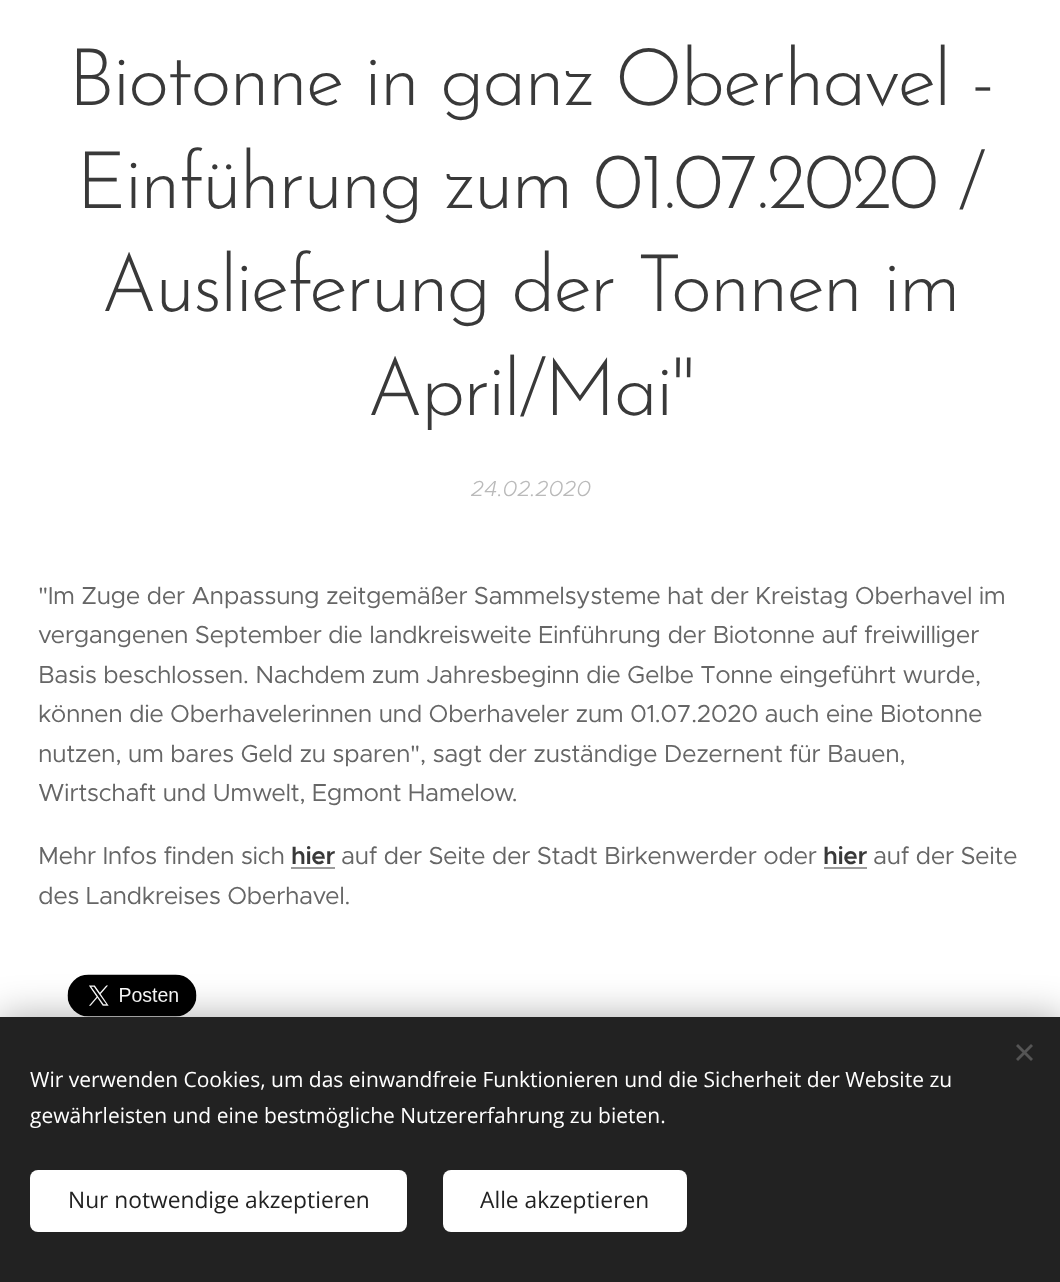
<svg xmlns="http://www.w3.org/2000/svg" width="1060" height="1282">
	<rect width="100%" height="100%" fill="#FFFFFF" />
	<g font-family="Josefin Sans" font-size="79.5" font-weight="300" letter-spacing="-2.4" fill="#393939">
		<text x="68" y="105">Biotonne in ganz Oberhavel -</text>
		<text x="76" y="208">Einführung zum 01.07.2020 /</text>
		<text x="101" y="311">Auslieferung der Tonnen im</text>
		<text x="367" y="415">April/Mai"</text>
	</g>
	<text x="471" y="496" font-family="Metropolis" font-size="22" font-weight="300" font-style="italic" fill="#BABABA">24.02.2020</text>
	<g font-family="Metropolis" font-size="24.6" letter-spacing="-0.48" fill="#666666">
		<text x="38" y="604">"Im Zuge der Anpassung zeitgemäßer Sammelsysteme hat der Kreistag Oberhavel im</text>
		<text x="38" y="643">vergangenen September die landkreisweite Einführung der Biotonne auf freiwilliger</text>
		<text x="38" y="683">Basis beschlossen. Nachdem zum Jahresbeginn die Gelbe Tonne eingeführt wurde,</text>
		<text x="38" y="722">können die Oberhavelerinnen und Oberhaveler zum 01.07.2020 auch eine Biotonne</text>
		<text x="38" y="762">nutzen, um bares Geld zu sparen", sagt der zuständige Dezernent für Bauen,</text>
		<text x="38" y="801">Wirtschaft und Umwelt, Egmont Hamelow.</text>
		<text x="38" y="864">Mehr Infos finden sich</text>
	</g>
	<text x="291" y="864" font-family="Metropolis" font-size="24.6" font-weight="600" letter-spacing="-0.48" fill="#393939">hier</text>
	<rect x="291" y="867" width="44" height="2" fill="#9C9C9C" />
	<text x="341" y="864" font-family="Metropolis" font-size="24.6" letter-spacing="-0.48" fill="#666666">auf der Seite der Stadt Birkenwerder oder</text>
	<text x="823" y="864" font-family="Metropolis" font-size="24.6" font-weight="600" letter-spacing="-0.48" fill="#393939">hier</text>
	<rect x="824" y="867" width="43" height="2" fill="#9C9C9C" />
	<g font-family="Metropolis" font-size="24.6" letter-spacing="-0.48" fill="#666666">
		<text x="873" y="864">auf der Seite</text>
		<text x="38" y="904">des Landkreises Oberhavel.</text>
	</g>
	<image x="67" y="974" width="130" height="43" href="assets/img1.png" />
	<rect x="0" y="1017" width="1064" height="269" fill="#000000" fill-opacity="0.33" filter="blur(19px)" />
	<rect x="0" y="1017" width="1060" height="265" fill="#222222" />
	<path d="M1016 1059L1031 1044L1033 1046L1018 1061Z" fill="#555555" />
	<path d="M1018 1044L1033 1059L1031 1061L1016 1046Z" fill="#555555" />
	<g font-family="Open Sans" font-size="21" fill="#FFFFFF">
		<text x="30" y="1087">Wir verwenden Cookies, um das einwandfreie Funktionieren und die Sicherheit der Website zu</text>
		<text x="30" y="1123">gewährleisten und eine bestmögliche Nutzererfahrung zu bieten.</text>
	</g>
	<rect x="30" y="1170" width="377" height="62" rx="8" fill="#FFFFFF" />
	<text x="68" y="1208" font-family="Open Sans" font-size="22.75" fill="#222222">Nur notwendige akzeptieren</text>
	<rect x="443" y="1170" width="244" height="62" rx="8" fill="#FFFFFF" />
	<text x="480" y="1208" font-family="Open Sans" font-size="22.75" fill="#222222">Alle akzeptieren</text>
</svg>
